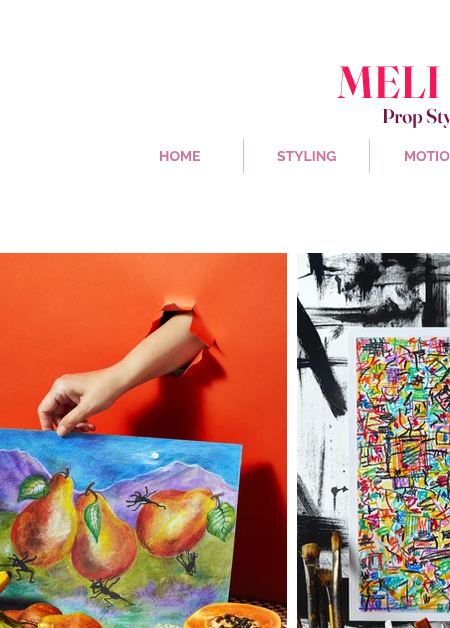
<svg xmlns="http://www.w3.org/2000/svg" width="450" height="628">
	<rect width="100%" height="100%" fill="#FFFFFF" />
	<text x="337" y="98" font-family="Fraunces" font-size="45" font-weight="600" fill="#F71659">MELI</text>
	<text x="382" y="123" font-family="Fraunces" font-size="20" font-weight="600" fill="#751346">Prop Sty</text>
	<text x="159" y="161" font-family="Raleway" font-size="14" font-weight="700" fill="#CA76A1">HOME</text>
	<rect x="243" y="139" width="1" height="34" fill="#D8BDE2" />
	<text x="277" y="161" font-family="Raleway" font-size="14" font-weight="700" fill="#CA76A1">STYLING</text>
	<rect x="369" y="139" width="1" height="34" fill="#D8BDE2" />
	<text x="404" y="161" font-family="Raleway" font-size="14" font-weight="700" fill="#CA76A1">MOTIO</text>
	<image x="0" y="253" width="287" height="375" href="assets/img1.png" />
	<image x="297" y="253" width="153" height="375" href="assets/img2.png" />
</svg>
